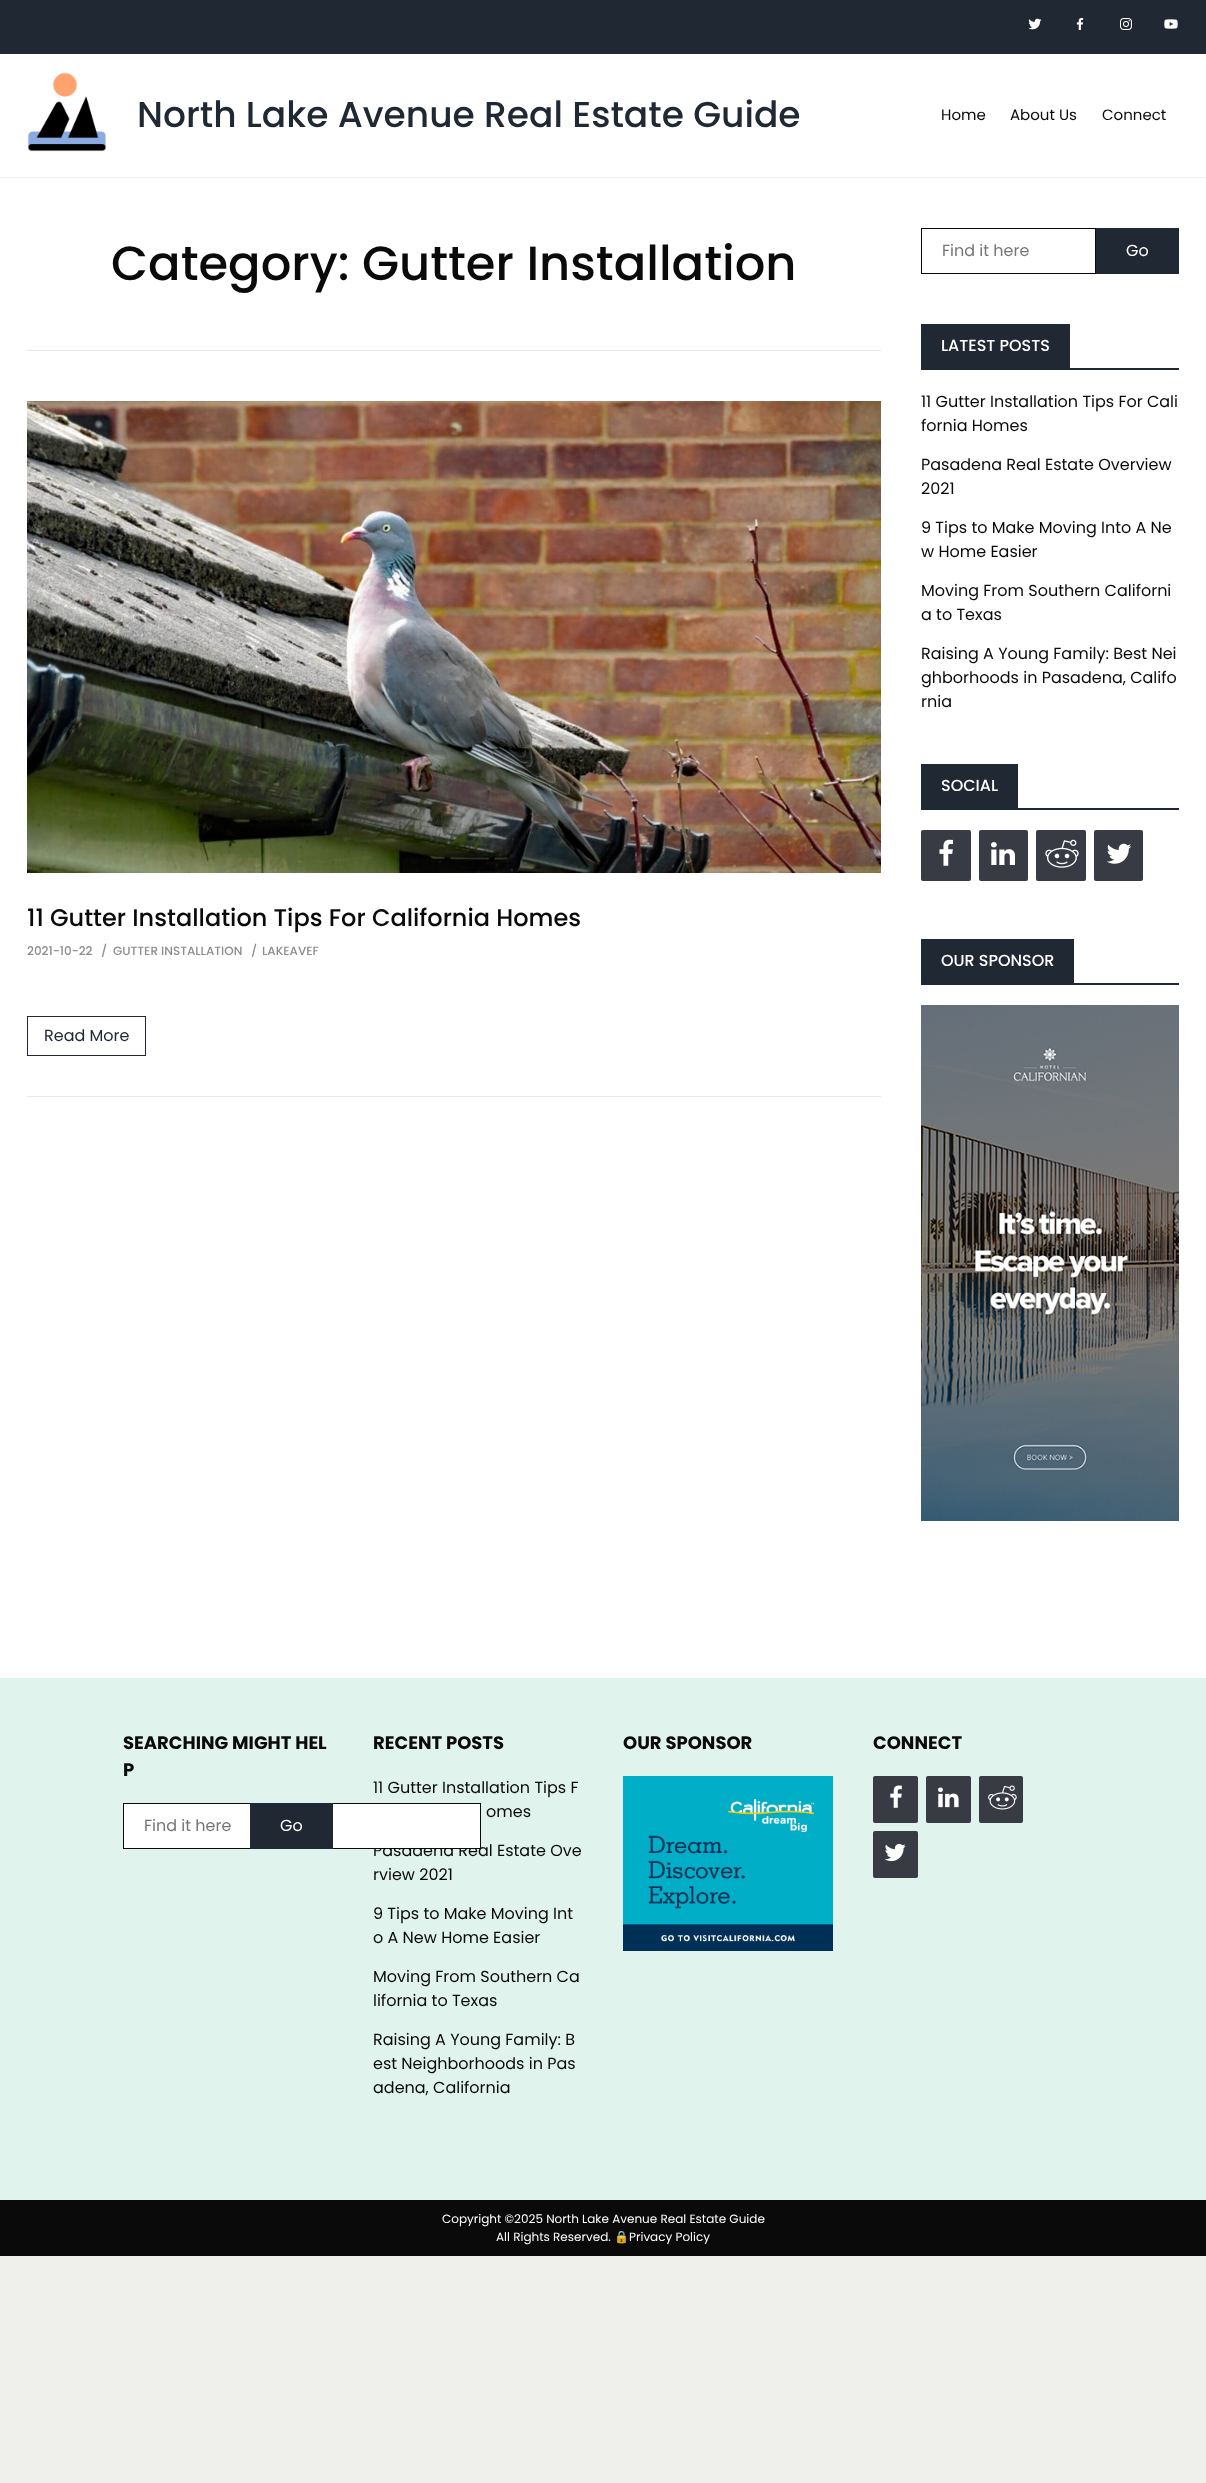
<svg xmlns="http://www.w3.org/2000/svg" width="1206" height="2483">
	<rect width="100%" height="100%" fill="#EFF0EB" />
	<rect x="0" y="54" width="1206" height="1624" fill="#FFFFFF" />
	<rect x="0" y="177" width="1206" height="1" fill="#F1F1F1" />
	<rect x="0" y="0" width="1206" height="54" fill="#202833" />
	<image x="1028" y="18" width="14" height="12" href="assets/img1.png" />
	<image x="1076" y="18" width="8" height="12" href="assets/img2.png" />
	<image x="1120" y="18" width="12" height="12" href="assets/img3.png" />
	<image x="1164" y="19" width="14" height="10" href="assets/img4.png" />
	<image x="27" y="72" width="80" height="80" href="assets/img5.png" />
	<text x="137" y="127" font-family="Poppins" font-size="36" font-weight="500" fill="#202833">North Lake Avenue Real Estate Guide</text>
	<g font-family="Poppins" font-size="15" fill="#0A0A0A">
		<text x="941" y="120">Home</text>
		<text x="1010" y="120">About Us</text>
		<text x="1102" y="120">Connect</text>
	</g>
	<rect x="27" y="350" width="854" height="1" fill="#EAEAEA" />
	<text x="111" y="280" font-family="Poppins" font-size="48" font-weight="500" fill="#0A0A0A">Category: Gutter Installation</text>
	<rect x="27" y="1096" width="854" height="1" fill="#EAEAEA" />
	<image x="27" y="401" width="854" height="472" href="assets/img6.png" />
	<text x="27" y="926" font-family="Poppins" font-size="24" font-weight="500" fill="#0A0A0A">11 Gutter Installation Tips For California Homes</text>
	<g font-family="Poppins" font-size="12" font-weight="500" fill="#8E8D8D">
		<text x="27" y="955">2021-10-22</text>
		<text x="101" y="955">/</text>
		<text x="113" y="955">GUTTER INSTALLATION</text>
		<text x="251" y="955">/</text>
		<text x="262" y="955">LAKEAVEF</text>
	</g>
	<rect x="27.5" y="1016.5" width="118" height="39" fill="none" stroke="#202833" />
	<text x="44" y="1041" font-family="Poppins" font-size="16" fill="#202833">Read More</text>
	<rect x="921.5" y="228.5" width="174" height="45" fill="none" stroke="#0A0A0A" />
	<text x="942" y="256" font-family="Poppins" font-size="16" fill="#757575">Find it here</text>
	<rect x="1096" y="228" width="83" height="46" fill="#202833" />
	<text x="1126" y="256" font-family="Poppins" font-size="16" fill="#FFFFFF">Go</text>
	<rect x="921" y="368" width="258" height="2" fill="#202833" />
	<rect x="921" y="324" width="149" height="44" fill="#202833" />
	<text x="941" y="351" font-family="Poppins" font-size="16" font-weight="500" fill="#FFFFFF">LATEST POSTS</text>
	<g font-family="Poppins" font-size="16" fill="#0A0A0A">
		<text x="921" y="407">11 Gutter Installation Tips For Cali</text>
		<text x="921" y="431">fornia Homes</text>
		<text x="921" y="470">Pasadena Real Estate Overview</text>
		<text x="921" y="494">2021</text>
		<text x="921" y="533">9 Tips to Make Moving Into A Ne</text>
		<text x="921" y="557">w Home Easier</text>
		<text x="921" y="596">Moving From Southern Californi</text>
		<text x="921" y="620">a to Texas</text>
		<text x="921" y="659">Raising A Young Family: Best Nei</text>
		<text x="921" y="683">ghborhoods in Pasadena, Califo</text>
		<text x="921" y="707">rnia</text>
	</g>
	<rect x="921" y="808" width="258" height="2" fill="#202833" />
	<rect x="921" y="764" width="97" height="44" fill="#202833" />
	<text x="941" y="791" font-family="Poppins" font-size="16" font-weight="500" fill="#FFFFFF">SOCIAL</text>
	<rect x="921" y="830" width="50" height="51" rx="2" fill="#383B44" />
	<image x="939" y="839" width="14" height="27" href="assets/img7.png" />
	<rect x="979" y="830" width="49" height="51" rx="2" fill="#383B44" />
	<image x="991" y="842" width="24" height="23" href="assets/img8.png" />
	<rect x="1036" y="830" width="50" height="51" rx="2" fill="#383B44" />
	<image x="1045" y="839" width="34" height="29" href="assets/img9.png" />
	<rect x="1094" y="830" width="49" height="51" rx="2" fill="#383B44" />
	<image x="1106" y="843" width="26" height="21" href="assets/img10.png" />
	<rect x="921" y="983" width="258" height="2" fill="#202833" />
	<rect x="921" y="939" width="153" height="44" fill="#202833" />
	<text x="941" y="966" font-family="Poppins" font-size="16" font-weight="500" fill="#FFFFFF">OUR SPONSOR</text>
	<image x="921" y="1005" width="258" height="516" href="assets/img11.png" />
	<rect x="0" y="1678" width="1206" height="522" fill="#E1F3ED" />
	<g font-family="Poppins" font-size="18" font-weight="700" fill="#0A0A0A">
		<text x="123" y="1749">SEARCHING MIGHT HEL</text>
		<text x="123" y="1776">P</text>
	</g>
	<text x="373" y="1856" font-family="Poppins" font-size="16" fill="#0A0A0A">Pasadena Real Estate Ove</text>
	<rect x="123.5" y="1803.5" width="357" height="45" fill="#FFFFFF" stroke="#0A0A0A" />
	<text x="144" y="1831" font-family="Poppins" font-size="16" fill="#757575">Find it here</text>
	<rect x="250" y="1803" width="83" height="46" fill="#202833" />
	<text x="280" y="1831" font-family="Poppins" font-size="16" fill="#FFFFFF">Go</text>
	<text x="373" y="1749" font-family="Poppins" font-size="18" font-weight="700" fill="#0A0A0A">RECENT POSTS</text>
	<g font-family="Poppins" font-size="16" fill="#0A0A0A">
		<text x="373" y="1793">11 Gutter Installation Tips F</text>
		<text x="486" y="1817">omes</text>
		<text x="373" y="1880">rview 2021</text>
		<text x="373" y="1919">9 Tips to Make Moving Int</text>
		<text x="373" y="1943">o A New Home Easier</text>
		<text x="373" y="1982">Moving From Southern Ca</text>
		<text x="373" y="2006">lifornia to Texas</text>
		<text x="373" y="2045">Raising A Young Family: B</text>
		<text x="373" y="2069">est Neighborhoods in Pas</text>
		<text x="373" y="2093">adena, California</text>
	</g>
	<text x="623" y="1749" font-family="Poppins" font-size="18" font-weight="700" fill="#0A0A0A">OUR SPONSOR</text>
	<image x="623" y="1776" width="210" height="175" href="assets/img12.png" />
	<text x="873" y="1749" font-family="Poppins" font-size="18" font-weight="700" fill="#0A0A0A">CONNECT</text>
	<rect x="873" y="1776" width="45" height="47" rx="2" fill="#383B44" />
	<image x="890" y="1785" width="12" height="23" href="assets/img13.png" />
	<rect x="926" y="1776" width="45" height="47" rx="2" fill="#383B44" />
	<image x="938" y="1787" width="21" height="21" href="assets/img14.png" />
	<rect x="979" y="1776" width="44" height="47" rx="2" fill="#383B44" />
	<image x="988" y="1785" width="29" height="25" href="assets/img15.png" />
	<rect x="873" y="1831" width="45" height="47" rx="2" fill="#383B44" />
	<image x="884" y="1843" width="22" height="19" href="assets/img16.png" />
	<rect x="0" y="2200" width="1206" height="56" fill="#0A0A0A" />
	<g font-family="Poppins" font-size="12" fill="#FFFFFF">
		<text x="442" y="2223">Copyright ©2025 North Lake Avenue Real Estate Guide</text>
		<text x="496" y="2241">All Rights Reserved.</text>
	</g>
	<text x="614" y="2241" font-family="Noto Color Emoji" font-size="12" fill="#FFFFFF">🔒</text>
	<text x="629" y="2241" font-family="Poppins" font-size="12" fill="#FFFFFF">Privacy Policy</text>
</svg>
